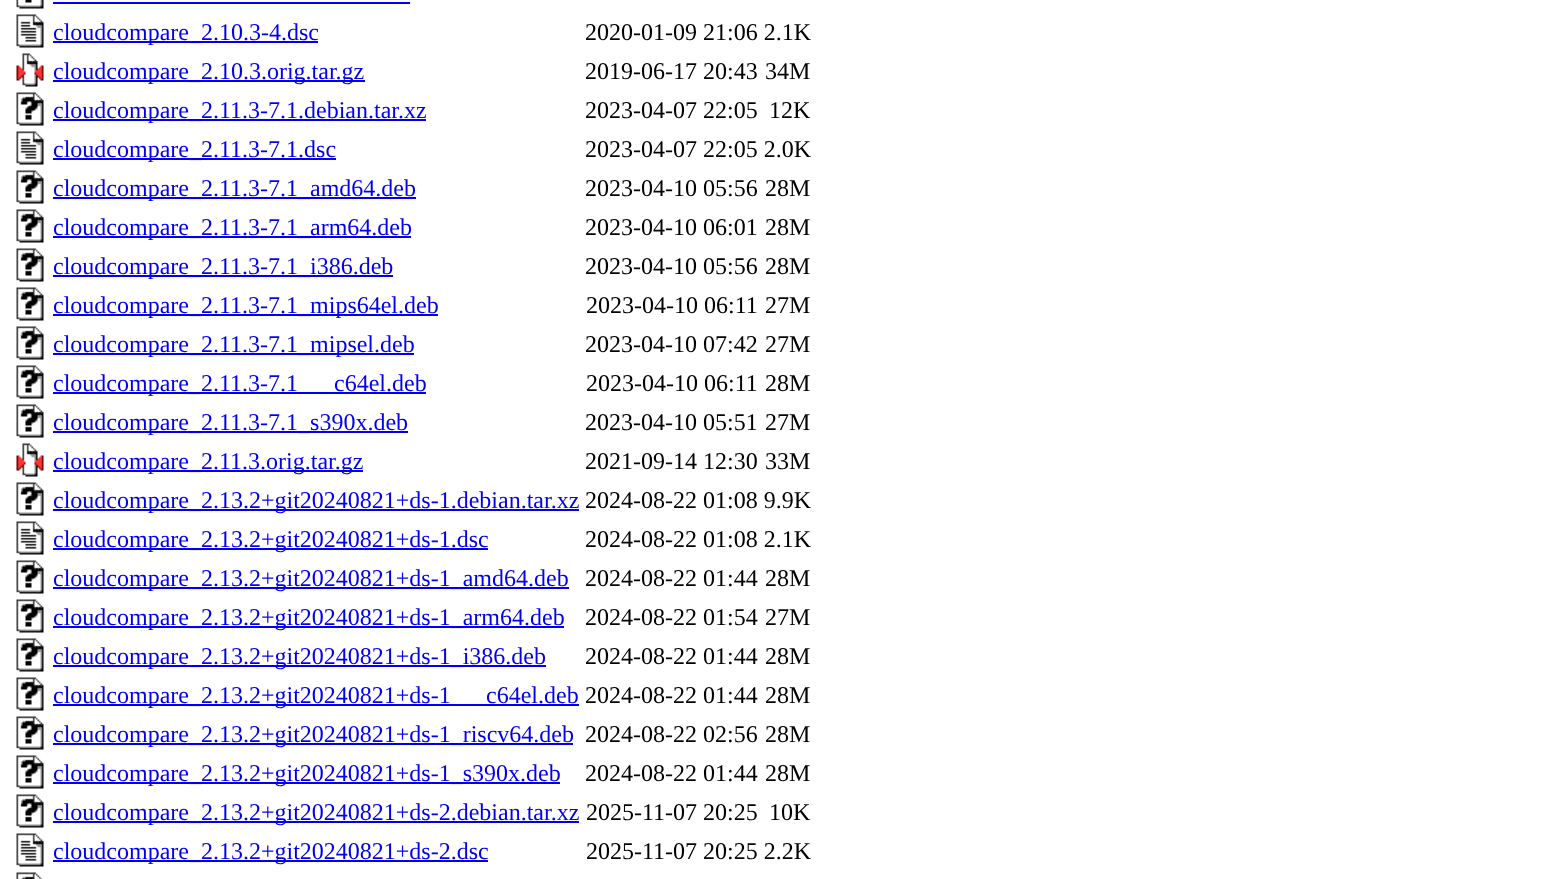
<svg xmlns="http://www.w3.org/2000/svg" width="1556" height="879">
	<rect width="100%" height="100%" fill="#FFFFFF" />
	<image x="16" y="0" width="28" height="9" href="assets/img1.png" />
	<rect x="53" y="2" width="357" height="2" fill="#0000EE" />
	<image x="16" y="14" width="28" height="34" href="assets/img2.png" />
	<rect x="53" y="41" width="265" height="2" fill="#0000EE" />
	<text x="53" y="40" font-family="Liberation Serif" font-size="24" fill="#0000EE">cloudcompare_2.10.3-4.dsc</text>
	<text x="585" y="40" font-family="Liberation Serif" font-size="24" fill="#000000">2020-01-09 21:06 2.1K</text>
	<image x="16" y="53" width="28" height="34" href="assets/img3.png" />
	<rect x="53" y="80" width="312" height="2" fill="#0000EE" />
	<text x="53" y="79" font-family="Liberation Serif" font-size="24" fill="#0000EE">cloudcompare_2.10.3.orig.tar.gz</text>
	<g font-family="Liberation Serif" font-size="24" fill="#000000">
		<text x="585" y="79">2019-06-17 20:43</text>
		<text x="765" y="79">34M</text>
	</g>
	<image x="16" y="92" width="28" height="34" href="assets/img4.png" />
	<rect x="53" y="119" width="373" height="2" fill="#0000EE" />
	<text x="53" y="118" font-family="Liberation Serif" font-size="24" fill="#0000EE">cloudcompare_2.11.3-7.1.debian.tar.xz</text>
	<g font-family="Liberation Serif" font-size="24" fill="#000000">
		<text x="585" y="118">2023-04-07 22:05</text>
		<text x="769" y="118">12K</text>
	</g>
	<image x="16" y="131" width="28" height="34" href="assets/img2.png" />
	<rect x="53" y="158" width="283" height="2" fill="#0000EE" />
	<text x="53" y="157" font-family="Liberation Serif" font-size="24" fill="#0000EE">cloudcompare_2.11.3-7.1.dsc</text>
	<text x="585" y="157" font-family="Liberation Serif" font-size="24" fill="#000000">2023-04-07 22:05 2.0K</text>
	<image x="16" y="170" width="28" height="34" href="assets/img4.png" />
	<rect x="53" y="197" width="363" height="2" fill="#0000EE" />
	<text x="53" y="196" font-family="Liberation Serif" font-size="24" fill="#0000EE">cloudcompare_2.11.3-7.1_amd64.deb</text>
	<g font-family="Liberation Serif" font-size="24" fill="#000000">
		<text x="585" y="196">2023-04-10 05:56</text>
		<text x="765" y="196">28M</text>
	</g>
	<image x="16" y="209" width="28" height="34" href="assets/img4.png" />
	<rect x="53" y="236" width="358" height="2" fill="#0000EE" />
	<text x="53" y="235" font-family="Liberation Serif" font-size="24" fill="#0000EE">cloudcompare_2.11.3-7.1_arm64.deb</text>
	<g font-family="Liberation Serif" font-size="24" fill="#000000">
		<text x="585" y="235">2023-04-10 06:01</text>
		<text x="765" y="235">28M</text>
	</g>
	<image x="16" y="248" width="28" height="34" href="assets/img4.png" />
	<rect x="53" y="275" width="340" height="2" fill="#0000EE" />
	<text x="53" y="274" font-family="Liberation Serif" font-size="24" fill="#0000EE">cloudcompare_2.11.3-7.1_i386.deb</text>
	<g font-family="Liberation Serif" font-size="24" fill="#000000">
		<text x="585" y="274">2023-04-10 05:56</text>
		<text x="765" y="274">28M</text>
	</g>
	<image x="16" y="287" width="28" height="34" href="assets/img4.png" />
	<rect x="53" y="314" width="385" height="2" fill="#0000EE" />
	<text x="53" y="313" font-family="Liberation Serif" font-size="24" fill="#0000EE">cloudcompare_2.11.3-7.1_mips64el.deb</text>
	<g font-family="Liberation Serif" font-size="24" fill="#000000">
		<text x="586" y="313">2023-04-10 06:11</text>
		<text x="765" y="313">27M</text>
	</g>
	<image x="16" y="326" width="28" height="34" href="assets/img4.png" />
	<rect x="53" y="353" width="361" height="2" fill="#0000EE" />
	<text x="53" y="352" font-family="Liberation Serif" font-size="24" fill="#0000EE">cloudcompare_2.11.3-7.1_mipsel.deb</text>
	<g font-family="Liberation Serif" font-size="24" fill="#000000">
		<text x="585" y="352">2023-04-10 07:42</text>
		<text x="765" y="352">27M</text>
	</g>
	<image x="16" y="365" width="28" height="34" href="assets/img4.png" />
	<rect x="53" y="392" width="373" height="2" fill="#0000EE" />
	<g font-family="Liberation Serif" font-size="24" fill="#0000EE">
		<text x="53" y="391">cloudcompare_2.11.3-7.1</text>
		<text x="334" y="391">c64el.deb</text>
	</g>
	<g font-family="Liberation Serif" font-size="24" fill="#000000">
		<text x="586" y="391">2023-04-10 06:11</text>
		<text x="765" y="391">28M</text>
	</g>
	<image x="16" y="404" width="28" height="34" href="assets/img4.png" />
	<rect x="53" y="431" width="355" height="2" fill="#0000EE" />
	<text x="53" y="430" font-family="Liberation Serif" font-size="24" fill="#0000EE">cloudcompare_2.11.3-7.1_s390x.deb</text>
	<g font-family="Liberation Serif" font-size="24" fill="#000000">
		<text x="585" y="430">2023-04-10 05:51</text>
		<text x="765" y="430">27M</text>
	</g>
	<image x="16" y="443" width="28" height="34" href="assets/img3.png" />
	<rect x="53" y="470" width="310" height="2" fill="#0000EE" />
	<text x="53" y="469" font-family="Liberation Serif" font-size="24" fill="#0000EE">cloudcompare_2.11.3.orig.tar.gz</text>
	<g font-family="Liberation Serif" font-size="24" fill="#000000">
		<text x="585" y="469">2021-09-14 12:30</text>
		<text x="765" y="469">33M</text>
	</g>
	<image x="16" y="482" width="28" height="34" href="assets/img4.png" />
	<rect x="53" y="509" width="526" height="2" fill="#0000EE" />
	<text x="53" y="508" font-family="Liberation Serif" font-size="24" fill="#0000EE">cloudcompare_2.13.2+git20240821+ds-1.debian.tar.xz</text>
	<text x="585" y="508" font-family="Liberation Serif" font-size="24" fill="#000000">2024-08-22 01:08 9.9K</text>
	<image x="16" y="521" width="28" height="34" href="assets/img2.png" />
	<rect x="53" y="548" width="435" height="2" fill="#0000EE" />
	<text x="53" y="547" font-family="Liberation Serif" font-size="24" fill="#0000EE">cloudcompare_2.13.2+git20240821+ds-1.dsc</text>
	<text x="585" y="547" font-family="Liberation Serif" font-size="24" fill="#000000">2024-08-22 01:08 2.1K</text>
	<image x="16" y="560" width="28" height="34" href="assets/img4.png" />
	<rect x="53" y="587" width="516" height="2" fill="#0000EE" />
	<text x="53" y="586" font-family="Liberation Serif" font-size="24" fill="#0000EE">cloudcompare_2.13.2+git20240821+ds-1_amd64.deb</text>
	<g font-family="Liberation Serif" font-size="24" fill="#000000">
		<text x="585" y="586">2024-08-22 01:44</text>
		<text x="765" y="586">28M</text>
	</g>
	<image x="16" y="599" width="28" height="34" href="assets/img4.png" />
	<rect x="53" y="626" width="511" height="2" fill="#0000EE" />
	<text x="53" y="625" font-family="Liberation Serif" font-size="24" fill="#0000EE">cloudcompare_2.13.2+git20240821+ds-1_arm64.deb</text>
	<g font-family="Liberation Serif" font-size="24" fill="#000000">
		<text x="585" y="625">2024-08-22 01:54</text>
		<text x="765" y="625">27M</text>
	</g>
	<image x="16" y="638" width="28" height="34" href="assets/img4.png" />
	<rect x="53" y="665" width="493" height="2" fill="#0000EE" />
	<text x="53" y="664" font-family="Liberation Serif" font-size="24" fill="#0000EE">cloudcompare_2.13.2+git20240821+ds-1_i386.deb</text>
	<g font-family="Liberation Serif" font-size="24" fill="#000000">
		<text x="585" y="664">2024-08-22 01:44</text>
		<text x="765" y="664">28M</text>
	</g>
	<image x="16" y="677" width="28" height="34" href="assets/img4.png" />
	<rect x="53" y="704" width="526" height="2" fill="#0000EE" />
	<g font-family="Liberation Serif" font-size="24" fill="#0000EE">
		<text x="53" y="703">cloudcompare_2.13.2+git20240821+ds-1</text>
		<text x="486" y="703">c64el.deb</text>
	</g>
	<g font-family="Liberation Serif" font-size="24" fill="#000000">
		<text x="585" y="703">2024-08-22 01:44</text>
		<text x="765" y="703">28M</text>
	</g>
	<image x="16" y="716" width="28" height="34" href="assets/img4.png" />
	<rect x="53" y="743" width="520" height="2" fill="#0000EE" />
	<text x="53" y="742" font-family="Liberation Serif" font-size="24" fill="#0000EE">cloudcompare_2.13.2+git20240821+ds-1_riscv64.deb</text>
	<g font-family="Liberation Serif" font-size="24" fill="#000000">
		<text x="585" y="742">2024-08-22 02:56</text>
		<text x="765" y="742">28M</text>
	</g>
	<image x="16" y="755" width="28" height="34" href="assets/img4.png" />
	<rect x="53" y="782" width="507" height="2" fill="#0000EE" />
	<text x="53" y="781" font-family="Liberation Serif" font-size="24" fill="#0000EE">cloudcompare_2.13.2+git20240821+ds-1_s390x.deb</text>
	<g font-family="Liberation Serif" font-size="24" fill="#000000">
		<text x="585" y="781">2024-08-22 01:44</text>
		<text x="765" y="781">28M</text>
	</g>
	<image x="16" y="794" width="28" height="34" href="assets/img4.png" />
	<rect x="53" y="821" width="526" height="2" fill="#0000EE" />
	<text x="53" y="820" font-family="Liberation Serif" font-size="24" fill="#0000EE">cloudcompare_2.13.2+git20240821+ds-2.debian.tar.xz</text>
	<g font-family="Liberation Serif" font-size="24" fill="#000000">
		<text x="586" y="820">2025-11-07 20:25</text>
		<text x="769" y="820">10K</text>
	</g>
	<image x="16" y="833" width="28" height="34" href="assets/img2.png" />
	<rect x="53" y="860" width="435" height="2" fill="#0000EE" />
	<text x="53" y="859" font-family="Liberation Serif" font-size="24" fill="#0000EE">cloudcompare_2.13.2+git20240821+ds-2.dsc</text>
	<text x="586" y="859" font-family="Liberation Serif" font-size="24" fill="#000000">2025-11-07 20:25 2.2K</text>
	<image x="16" y="872" width="27" height="7" href="assets/img5.png" />
</svg>
